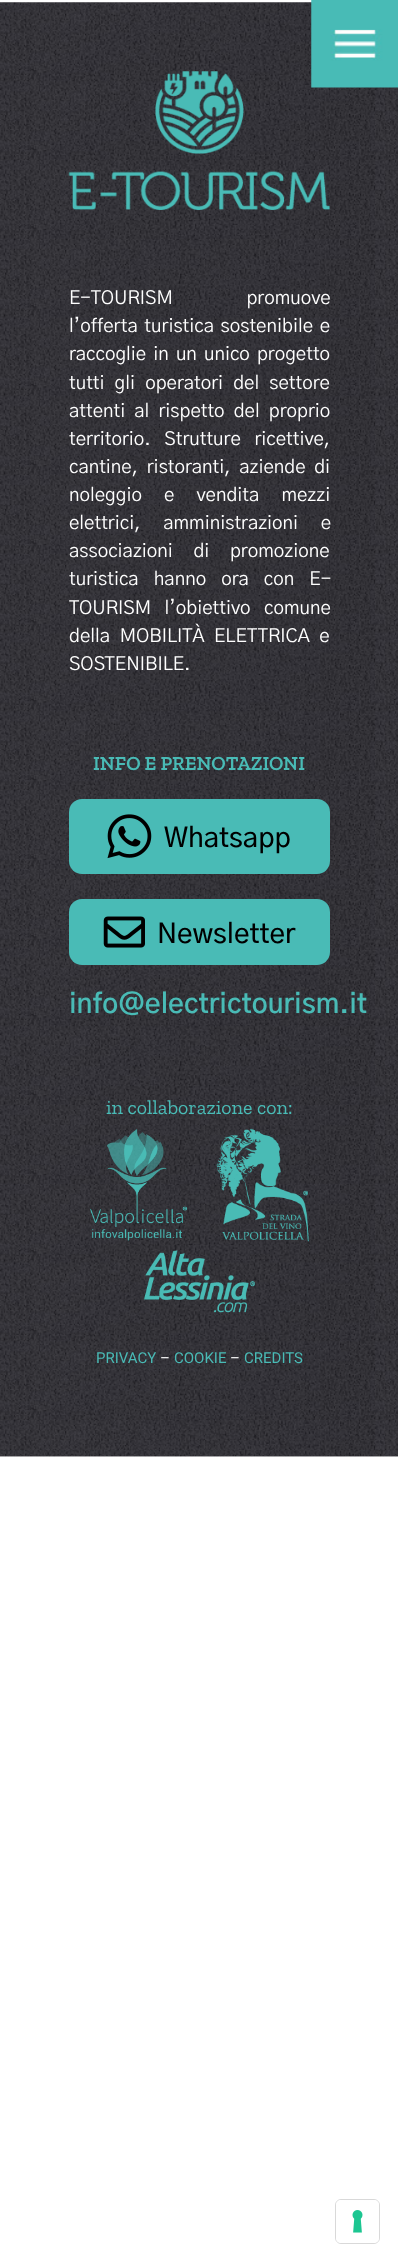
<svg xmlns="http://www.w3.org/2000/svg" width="398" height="2262">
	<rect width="100%" height="100%" fill="#FFFFFF" />
	<image x="0" y="2" width="398" height="1455" href="assets/img2.png" />
	<image x="0" y="2" width="398" height="1455" href="assets/img3.png" />
	<image x="68" y="71" width="262" height="139" href="assets/img4.png" />
	<image x="311" y="0" width="87" height="88" href="assets/img1.png" />
	<g font-family="'Gothic A1'" font-size="18.75" fill="#FFFFFF">
		<text x="69" y="304" word-spacing="69">E-TOURISM promuove</text>
		<text x="69" y="332" word-spacing="2">l’offerta turistica sostenibile e</text>
		<text x="69" y="360" word-spacing="2.5">raccoglie in un unico progetto</text>
		<text x="69" y="389" word-spacing="5.5">tutti gli operatori del settore</text>
		<text x="69" y="417" word-spacing="4.5">attenti al rispetto del proprio</text>
		<text x="69" y="445" word-spacing="9">territorio. Strutture ricettive,</text>
		<text x="69" y="473" word-spacing="4">cantine, ristoranti, aziende di</text>
		<text x="69" y="501" word-spacing="17.5">noleggio e vendita mezzi</text>
		<text x="69" y="529" word-spacing="18">elettrici, amministrazioni e</text>
		<text x="69" y="557" word-spacing="16">associazioni di promozione</text>
		<text x="69" y="585" word-spacing="10.5">turistica hanno ora con E-</text>
		<text x="69" y="614" word-spacing="9">TOURISM l’obiettivo comune</text>
		<text x="69" y="642" word-spacing="5">della MOBILITÀ ELETTRICA e</text>
		<text x="69" y="670">SOSTENIBILE.</text>
	</g>
	<text x="93" y="770" font-family="Zilla Slab" font-size="20" font-weight="600" fill="#49BBB6">INFO E PRENOTAZIONI</text>
	<rect x="69" y="799" width="261" height="75" rx="13" fill="#49BBB6" />
	<image x="107" y="814" width="45" height="45" href="assets/img5.png" />
	<text x="164" y="847" font-family="'Gothic A1'" font-size="27.5" font-weight="500" fill="#000000">Whatsapp</text>
	<rect x="69" y="899" width="261" height="66" rx="13" fill="#49BBB6" />
	<image x="103" y="916" width="42" height="32" href="assets/img6.png" />
	<text x="157" y="943" font-family="'Gothic A1'" font-size="27.5" font-weight="500" fill="#000000">Newsletter</text>
	<text x="69" y="1013" font-family="'Gothic A1'" font-size="27.5" font-weight="600" fill="#49BBB6">info@electrictourism.it</text>
	<text x="106" y="1114" font-family="Zilla Slab" font-size="20" fill="#49BBB6">in collaborazione con:</text>
	<image x="90" y="1129" width="98" height="112" href="assets/img7.png" />
	<image x="216" y="1128" width="93" height="114" href="assets/img8.png" />
	<image x="143" y="1250" width="112" height="63" href="assets/img9.png" />
	<text x="96" y="1363" font-family="Roboto" font-size="15" fill="#49BBB6">PRIVACY</text>
	<text x="160" y="1363" font-family="Roboto" font-size="15" fill="#FFFFFF">–</text>
	<text x="174" y="1363" font-family="Roboto" font-size="15" fill="#49BBB6">COOKIE</text>
	<text x="230" y="1363" font-family="Roboto" font-size="15" fill="#FFFFFF">–</text>
	<text x="244" y="1363" font-family="Roboto" font-size="15" fill="#49BBB6">CREDITS</text>
	<rect x="335.5" y="2199.5" width="44" height="44" rx="5.5" fill="none" stroke="#D9D9D9" />
	<rect x="336" y="2200" width="43" height="43" rx="5" fill="#FFFFFF" />
	<image x="352" y="2210" width="11" height="23" href="assets/img10.png" />
</svg>
